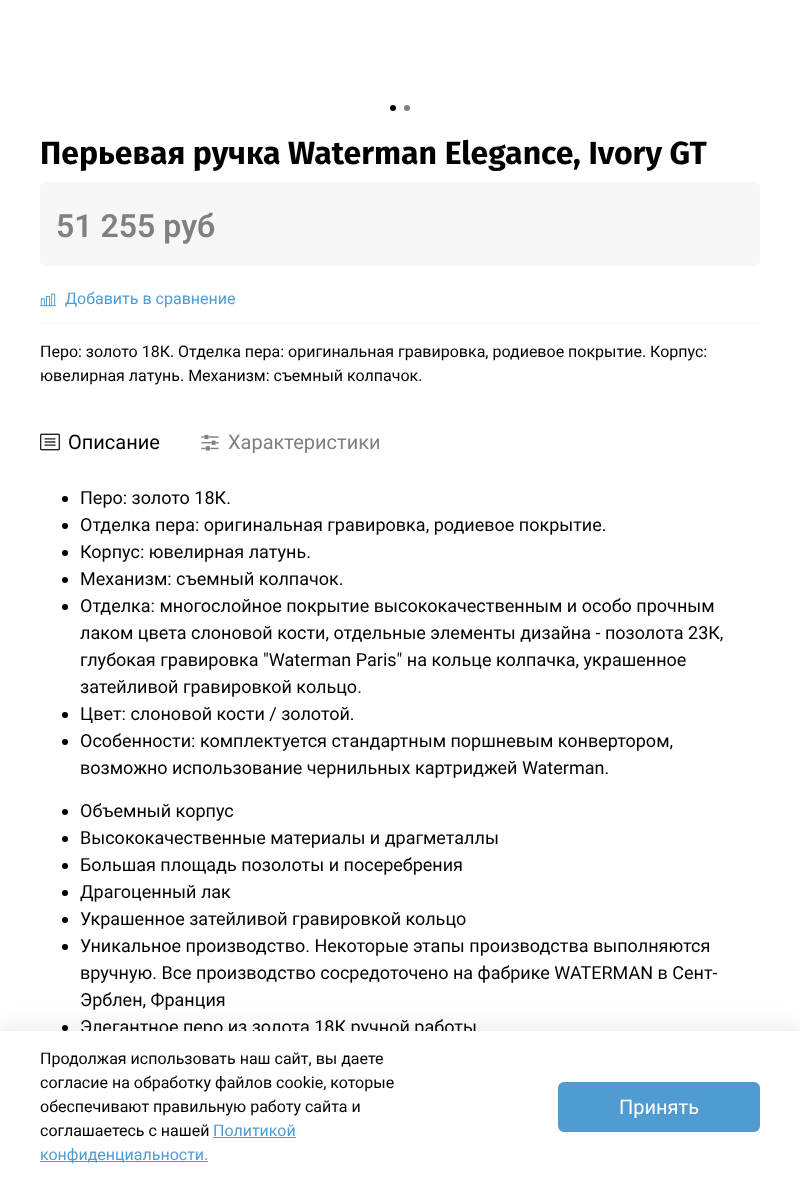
<svg xmlns="http://www.w3.org/2000/svg" width="800" height="1183">
	<rect width="100%" height="100%" fill="#FFFFFF" />
	<circle cx="393" cy="108" r="3" fill="#000000" />
	<circle cx="407" cy="108" r="3" fill="#808080" />
	<text x="40" y="164" font-family="Fira Sans" font-size="32" font-weight="700" fill="#000000">Перьевая ручка Waterman Elegance, Ivory GT</text>
	<rect x="40" y="182" width="720" height="84" rx="6" fill="#F7F7F7" />
	<text x="56" y="237" font-family="Roboto" font-size="32" font-weight="600" fill="#808080">51 255 руб</text>
	<rect x="40" y="323" width="720" height="1" fill="#F7F7F7" />
	<image x="40" y="293" width="16" height="14" href="assets/img1.png" />
	<text x="65" y="304" font-family="Roboto" font-size="16" fill="#509CD2">Добавить в сравнение</text>
	<g font-family="Roboto" font-size="16" fill="#000000">
		<text x="40" y="357">Перо: золото 18К. Отделка пера: оригинальная гравировка, родиевое покрытие. Корпус:</text>
		<text x="40" y="381">ювелирная латунь. Механизм: съемный колпачок.</text>
	</g>
	<image x="40" y="433" width="20" height="18" href="assets/img2.png" />
	<text x="68" y="449" font-family="Roboto" font-size="20" fill="#000000">Описание</text>
	<image x="201" y="434" width="18" height="17" href="assets/img3.png" />
	<text x="228" y="449" font-family="Roboto" font-size="20" fill="#808080">Характеристики</text>
	<circle cx="65" cy="499" r="3" fill="#000000" />
	<text x="80" y="504" font-family="Roboto" font-size="18" fill="#000000">Перо: золото 18К.</text>
	<circle cx="65" cy="526" r="3" fill="#000000" />
	<text x="80" y="531" font-family="Roboto" font-size="18" fill="#000000">Отделка пера: оригинальная гравировка, родиевое покрытие.</text>
	<circle cx="65" cy="553" r="3" fill="#000000" />
	<text x="80" y="558" font-family="Roboto" font-size="18" fill="#000000">Корпус: ювелирная латунь.</text>
	<circle cx="65" cy="580" r="3" fill="#000000" />
	<text x="80" y="585" font-family="Roboto" font-size="18" fill="#000000">Механизм: съемный колпачок.</text>
	<circle cx="65" cy="607" r="3" fill="#000000" />
	<g font-family="Roboto" font-size="18" fill="#000000">
		<text x="80" y="612">Отделка: многослойное покрытие высококачественным и особо прочным</text>
		<text x="80" y="639">лаком цвета слоновой кости, отдельные элементы дизайна - позолота 23К,</text>
		<text x="80" y="666">глубокая гравировка "Waterman Paris" на кольце колпачка, украшенное</text>
		<text x="80" y="693">затейливой гравировкой кольцо.</text>
	</g>
	<circle cx="65" cy="715" r="3" fill="#000000" />
	<text x="80" y="720" font-family="Roboto" font-size="18" fill="#000000">Цвет: слоновой кости / золотой.</text>
	<circle cx="65" cy="742" r="3" fill="#000000" />
	<g font-family="Roboto" font-size="18" fill="#000000">
		<text x="80" y="747">Особенности: комплектуется стандартным поршневым конвертором,</text>
		<text x="80" y="774">возможно использование чернильных картриджей Waterman.</text>
	</g>
	<circle cx="65" cy="812" r="3" fill="#000000" />
	<text x="80" y="817" font-family="Roboto" font-size="18" fill="#000000">Объемный корпус</text>
	<circle cx="65" cy="839" r="3" fill="#000000" />
	<text x="80" y="844" font-family="Roboto" font-size="18" fill="#000000">Высококачественные материалы и драгметаллы</text>
	<circle cx="65" cy="866" r="3" fill="#000000" />
	<text x="80" y="871" font-family="Roboto" font-size="18" fill="#000000">Большая площадь позолоты и посеребрения</text>
	<circle cx="65" cy="893" r="3" fill="#000000" />
	<text x="80" y="898" font-family="Roboto" font-size="18" fill="#000000">Драгоценный лак</text>
	<circle cx="65" cy="920" r="3" fill="#000000" />
	<text x="80" y="925" font-family="Roboto" font-size="18" fill="#000000">Украшенное затейливой гравировкой кольцо</text>
	<circle cx="65" cy="947" r="3" fill="#000000" />
	<g font-family="Roboto" font-size="18" fill="#000000">
		<text x="80" y="952">Уникальное производство. Некоторые этапы производства выполняются</text>
		<text x="80" y="979">вручную. Все производство сосредоточено на фабрике WATERMAN в Сент-</text>
		<text x="80" y="1006">Эрблен, Франция</text>
	</g>
	<circle cx="65" cy="1028" r="3" fill="#000000" />
	<text x="80" y="1033" font-family="Roboto" font-size="18" fill="#000000">Элегантное перо из золота 18К ручной работы</text>
	<rect x="-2" y="1028" width="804" height="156" fill="#000000" fill-opacity="0.09" filter="blur(11.5px)" />
	<rect x="0" y="1031" width="800" height="152" fill="#FFFFFF" />
	<g font-family="Roboto" font-size="16" fill="#000000">
		<text x="40" y="1064">Продолжая использовать наш сайт, вы даете</text>
		<text x="40" y="1088">согласие на обработку файлов cookie, которые</text>
		<text x="40" y="1112">обеспечивают правильную работу сайта и</text>
		<text x="40" y="1136">соглашаетесь с нашей</text>
	</g>
	<text x="213" y="1136" font-family="Roboto" font-size="16" fill="#509CD2">Политикой</text>
	<rect x="213" y="1137" width="83" height="1" fill="#509CD2" />
	<rect x="40" y="1161" width="168" height="1" fill="#509CD2" />
	<text x="40" y="1160" font-family="Roboto" font-size="16" fill="#509CD2">конфиденциальности.</text>
	<rect x="558" y="1082" width="202" height="50" rx="6" fill="#509CD2" />
	<text x="619" y="1114" font-family="Roboto" font-size="20" fill="#FFFFFF">Принять</text>
</svg>
